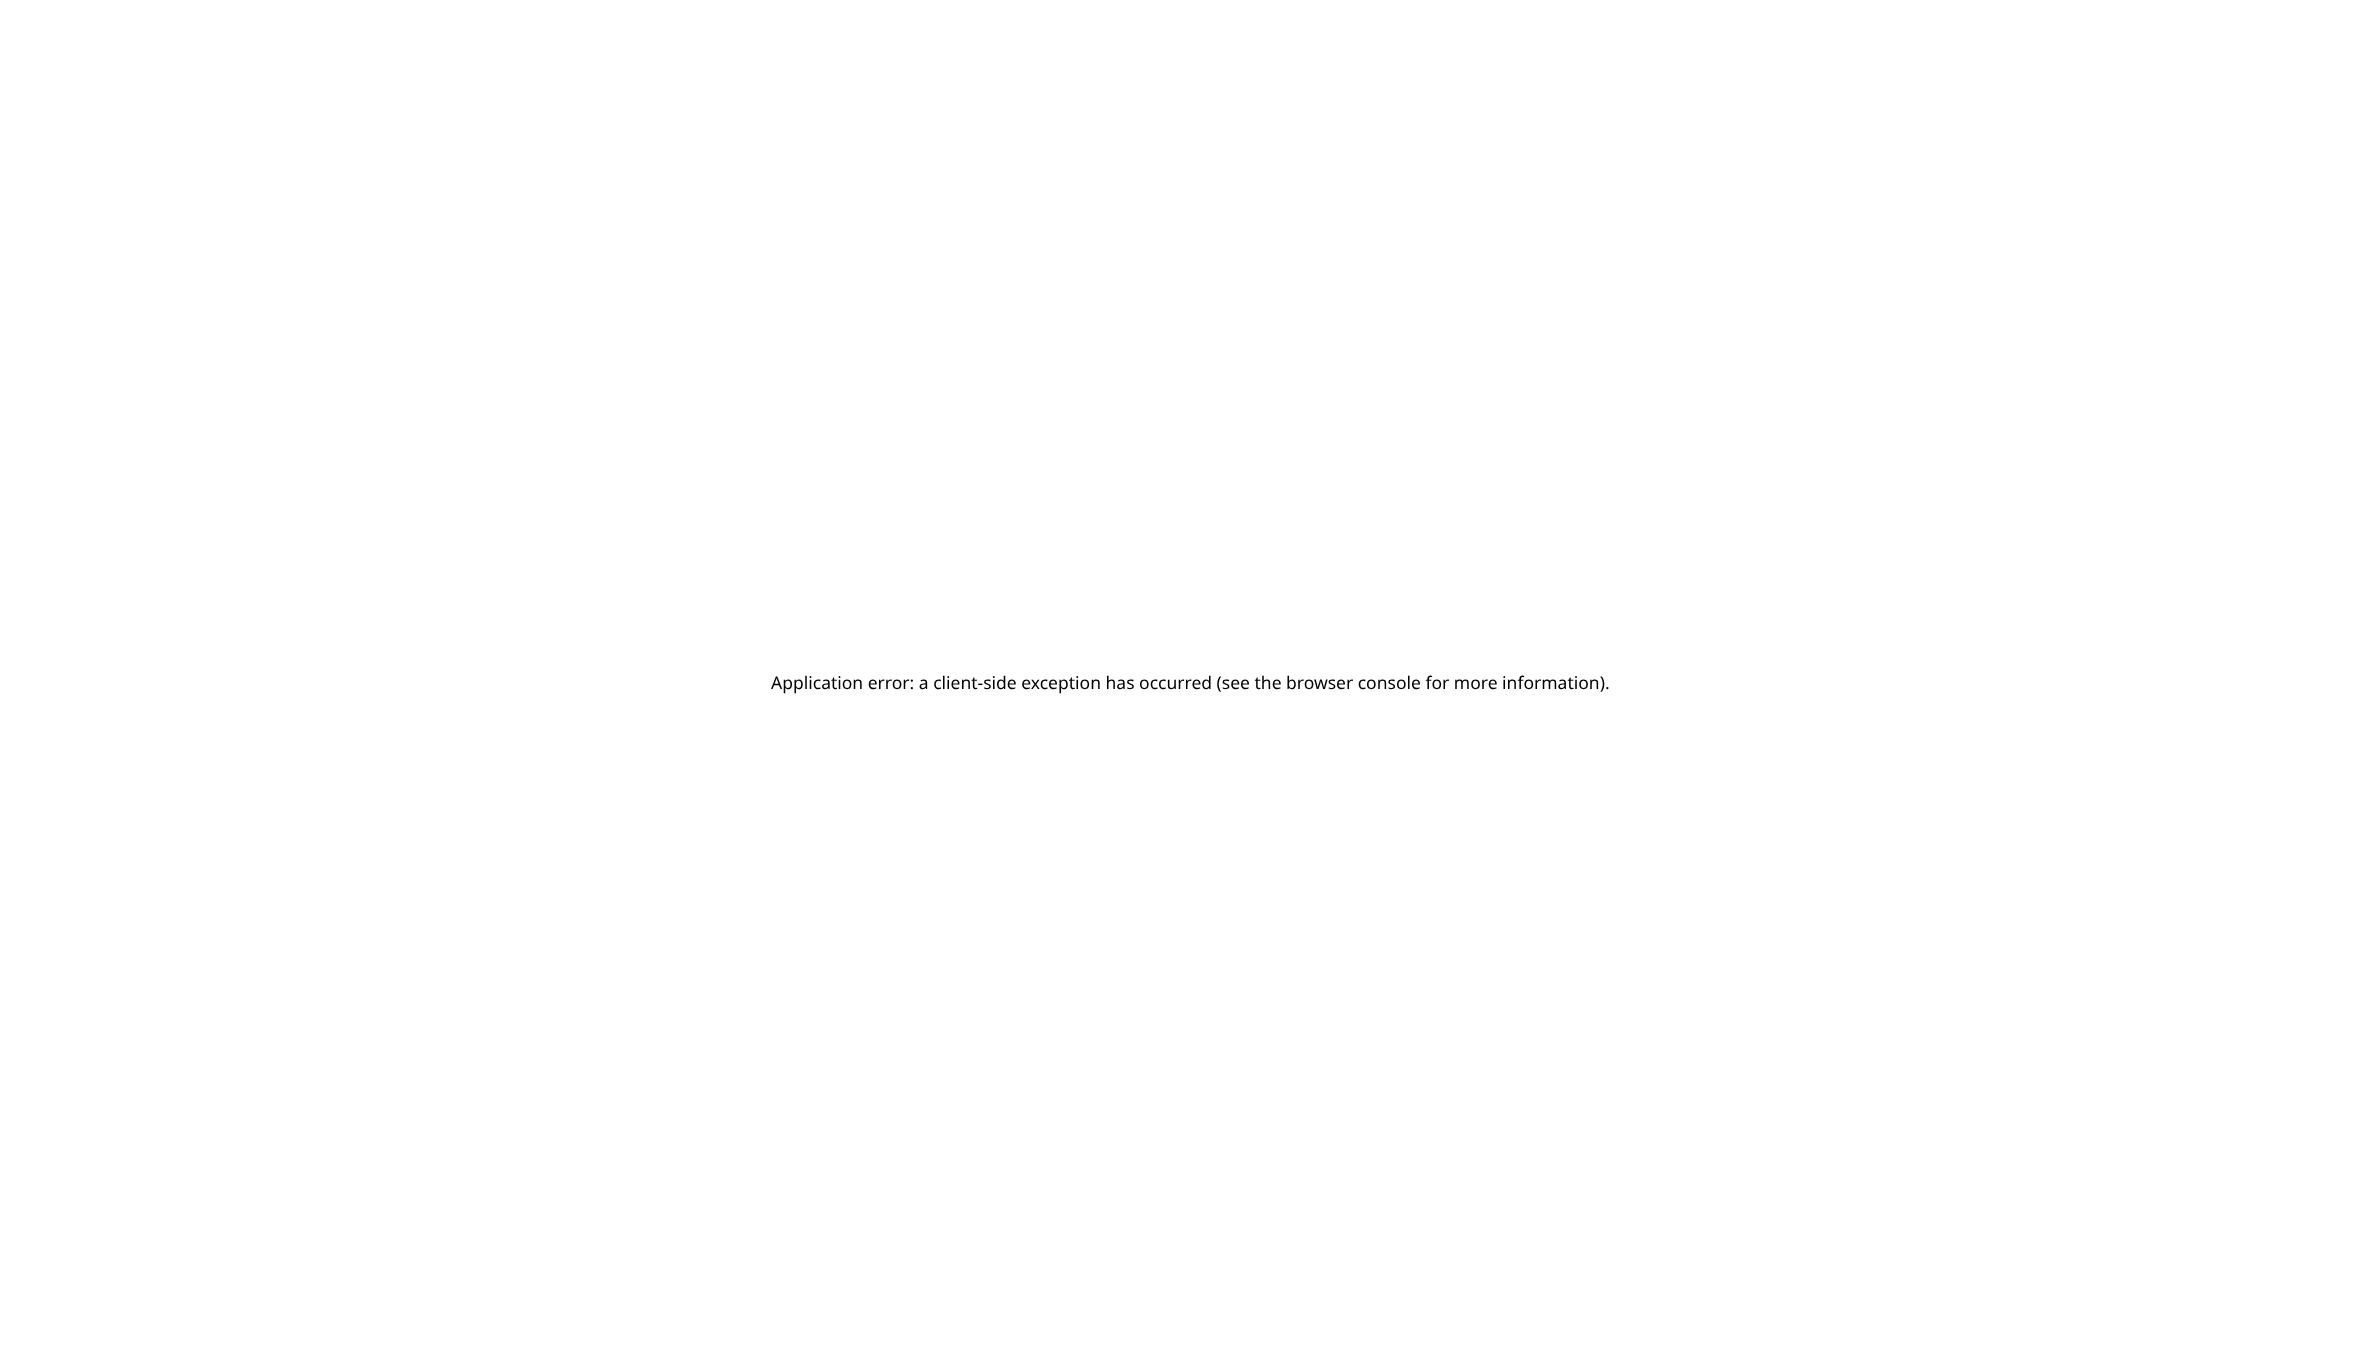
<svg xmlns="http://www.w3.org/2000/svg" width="2379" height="1365">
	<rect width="100%" height="100%" fill="#FFFFFF" />
	<text x="771" y="689" font-family="Noto Sans" font-size="17.5" fill="#000000">Application error: a client-side exception has occurred (see the browser console for more information).</text>
</svg>
